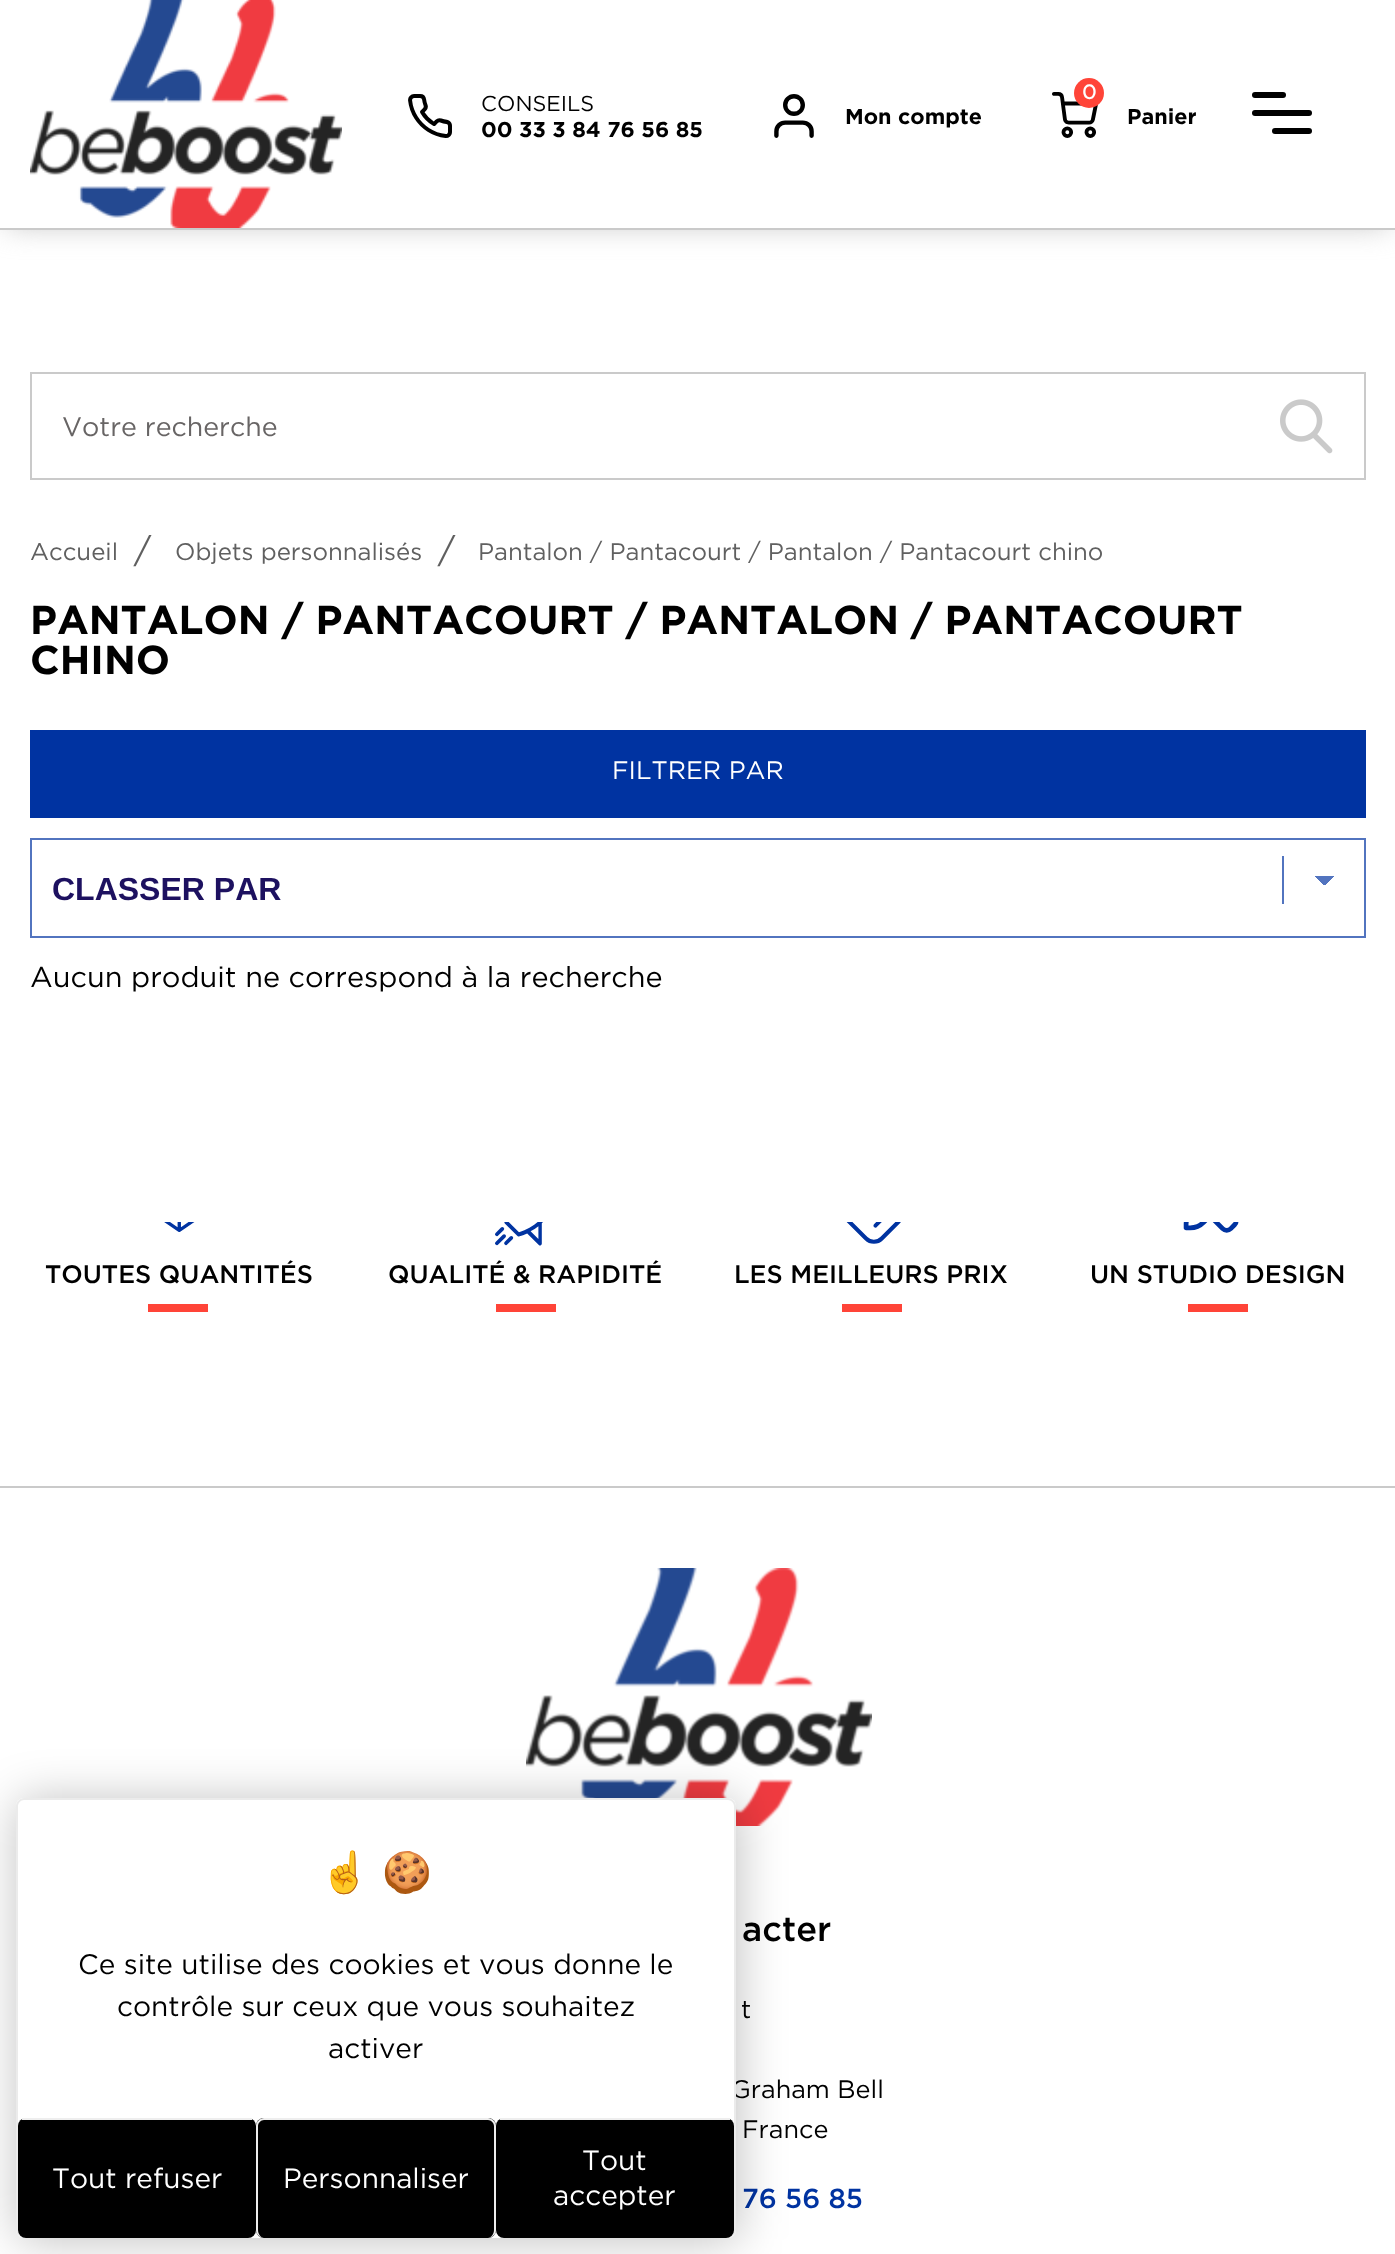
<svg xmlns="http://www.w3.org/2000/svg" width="1395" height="2254">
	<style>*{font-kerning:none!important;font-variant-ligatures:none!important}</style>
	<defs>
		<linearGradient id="g1" gradientUnits="userSpaceOnUse" x1="1324" y1="876" x2="1334" y2="886"><stop offset="0.5" stop-color="#5274BF" /><stop offset="0.5" stop-color="#FFFFFF" /></linearGradient>
		<linearGradient id="g2" gradientUnits="userSpaceOnUse" x1="1314" y1="886" x2="1324" y2="876"><stop offset="0.5" stop-color="#FFFFFF" /><stop offset="0.5" stop-color="#5274BF" /></linearGradient>
	</defs>
	<rect width="100%" height="100%" fill="#FFFFFF" />
	<rect x="6" y="6" width="1384" height="218" fill="#BDBDBD" filter="blur(15px)" />
	<rect x="0" y="0" width="1395" height="228" fill="#FFFFFF" />
	<rect x="0" y="228" width="1395" height="2" fill="#CACACA" />
	<image x="30" y="0" width="312" height="228" href="assets/img1.png" />
	<image x="408" y="94" width="44" height="44" href="assets/img2.png" />
	<text x="481" y="111" font-family="Gotham" font-size="21.6" fill="#000000">CONSEILS</text>
	<text x="481" y="137" font-family="Gotham" font-size="21.6" font-weight="700" fill="#000000">00 33 3 84 76 56 85</text>
	<image x="774" y="94" width="40" height="44" href="assets/img3.png" />
	<text x="845" y="124" font-family="Gotham" font-size="21.6" font-weight="700" fill="#000000">Mon compte</text>
	<image x="1052" y="92" width="46" height="46" href="assets/img4.png" />
	<circle cx="1089" cy="93" r="15" fill="#FF4438" />
	<text x="1082" y="99" font-family="'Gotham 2'" font-size="20" font-weight="700" fill="#FFFFFF">0</text>
	<text x="1127" y="124" font-family="Gotham" font-size="21.6" font-weight="700" fill="#000000">Panier</text>
	<rect x="1252" y="110" width="60" height="6" rx="3" fill="#000000" />
	<rect x="1252" y="92" width="34" height="6" rx="3" fill="#000000" />
	<rect x="1272" y="128" width="40" height="6" rx="3" fill="#000000" />
	<rect x="31" y="373" width="1334" height="106" fill="none" stroke="#CACACA" stroke-width="2" />
	<text x="62" y="436" font-family="Gotham" font-size="26.75" fill="#686565">Votre recherche</text>
	<image x="1280" y="399" width="53" height="55" href="assets/img5.png" />
	<text x="30" y="560" font-family="Gotham" font-size="24" fill="#606060">Accueil</text>
	<text x="134" y="562" font-family="Gotham" font-size="34" fill="#606060">/</text>
	<text x="175" y="560" font-family="Gotham" font-size="24" fill="#606060">Objets personnalisés</text>
	<text x="438" y="562" font-family="Gotham" font-size="34" fill="#606060">/</text>
	<text x="478" y="560" font-family="Gotham" font-size="24" fill="#606060">Pantalon / Pantacourt / Pantalon / Pantacourt chino</text>
	<g font-family="Gotham" font-size="40.3" font-weight="700" fill="#000000">
		<text x="30" y="634">PANTALON</text>
		<text x="282" y="634">/ PANTACOURT</text>
		<text x="626" y="634">/ PANTALON</text>
		<text x="911" y="634">/ PANTACOURT</text>
		<text x="30" y="674">CHINO</text>
	</g>
	<rect x="30" y="730" width="1336" height="88" fill="#0033A1" />
	<text x="612" y="779" font-family="Gotham" font-size="25.25" fill="#FFFFFF">FILTRER PAR</text>
	<rect x="1282" y="856" width="2" height="48" fill="#5274BF" />
	<rect x="1324" y="876" width="10" height="9" fill="url(#g1)" />
	<rect x="1314" y="876" width="10" height="9" fill="url(#g2)" />
	<rect x="31" y="839" width="1334" height="98" fill="none" stroke="#5274BF" stroke-width="2" />
	<text x="52" y="900" font-family="Liberation Sans" font-size="32" font-weight="700" fill="#1D1160">CLASSER PAR</text>
	<text x="30" y="987" font-family="Gotham" font-size="28.8" fill="#000000">Aucun produit ne correspond à la recherche</text>
	<image x="164" y="1222" width="31" height="10" href="assets/img6.png" />
	<text x="45" y="1283" font-family="Gotham" font-size="25.25" font-weight="500" fill="#000000">TOUTES QUANTITÉS</text>
	<rect x="148" y="1304" width="60" height="8" fill="#FF4438" />
	<image x="495" y="1222" width="48" height="24" href="assets/img7.png" />
	<text x="388" y="1283" font-family="Gotham" font-size="25.25" font-weight="500" fill="#000000">QUALITÉ &amp; RAPIDITÉ</text>
	<rect x="496" y="1304" width="60" height="8" fill="#FF4438" />
	<image x="846" y="1222" width="55" height="22" href="assets/img8.png" />
	<text x="734" y="1283" font-family="Gotham" font-size="25.25" font-weight="500" fill="#000000">LES MEILLEURS PRIX</text>
	<rect x="842" y="1304" width="60" height="8" fill="#FF4438" />
	<image x="1183" y="1222" width="56" height="11" href="assets/img9.png" />
	<text x="1090" y="1283" font-family="Gotham" font-size="25.25" font-weight="500" fill="#000000">UN STUDIO DESIGN</text>
	<rect x="1188" y="1304" width="60" height="8" fill="#FF4438" />
	<rect x="0" y="1486" width="1395" height="2" fill="#CACACA" />
	<image x="526" y="1568" width="346" height="258" href="assets/img10.png" />
	<text x="742" y="1941" font-family="Gotham" font-size="34.5" font-weight="500" fill="#000000">acter</text>
	<g font-family="Gotham" font-size="25.25" fill="#000000">
		<text x="741" y="2018">t</text>
		<text x="731" y="2098">Graham Bell</text>
		<text x="742" y="2138">France</text>
	</g>
	<text x="742" y="2208" font-family="Gotham" font-size="27.5" font-weight="500" fill="#0033A1">76 56 85</text>
	<rect x="18" y="1800" width="720" height="440" rx="8" fill="#000000" fill-opacity="0.25" filter="blur(24px)" />
	<rect x="16" y="1798" width="720" height="440" rx="8" fill="#FFFFFF" />
	<path d="M24 1798H728C732 1798 736 1802 736 1806V2230C736 2234 732 2238 728 2238H24C20 2238 16 2234 16 2230V1806C16 1802 20 1798 24 1798ZM24 1800H728C731 1800 734 1803 734 1806V2230C734 2234 731 2238 728 2238H24C21 2238 18 2234 18 2230V1806C18 1803 21 1800 24 1800Z" fill="#EBEBEB" fill-rule="evenodd" />
	<g font-family="Noto Color Emoji" font-size="40" font-weight="700" fill="#000000">
		<text x="320" y="1886">☝️</text>
		<text x="382" y="1886">🍪</text>
	</g>
	<g font-family="Gotham" font-size="28" fill="#000000">
		<text x="78" y="1974">Ce site utilise des cookies et vous donne le</text>
		<text x="117" y="2016">contrôle sur ceux que vous souhaitez</text>
		<text x="328" y="2058">activer</text>
	</g>
	<rect x="18" y="2118" width="238" height="120" rx="8" fill="#000000" />
	<rect x="22" y="2118" width="230" height="2" fill="#EEEEEE" />
	<text x="52" y="2188" font-family="Gotham" font-size="28" fill="#FFFFFF">Tout refuser</text>
	<rect x="256" y="2118" width="240" height="120" rx="8" fill="#000000" />
	<path d="M264 2118H488C492 2118 496 2122 496 2126V2230C496 2234 492 2238 488 2238H264C260 2238 256 2234 256 2230V2126C256 2122 260 2118 264 2118ZM264 2120H488C491 2120 494 2123 494 2126V2230C494 2234 491 2238 488 2238H264C261 2238 258 2234 258 2230V2126C258 2123 261 2120 264 2120Z" fill="#EEEEEE" fill-rule="evenodd" />
	<text x="283" y="2188" font-family="Gotham" font-size="28" fill="#FFFFFF">Personnaliser</text>
	<rect x="496" y="2118" width="238" height="120" rx="8" fill="#000000" />
	<rect x="500" y="2118" width="230" height="2" fill="#EEEEEE" />
	<g font-family="Gotham" font-size="28" fill="#FFFFFF">
		<text x="582" y="2170">Tout</text>
		<text x="553" y="2205">accepter</text>
	</g>
</svg>
